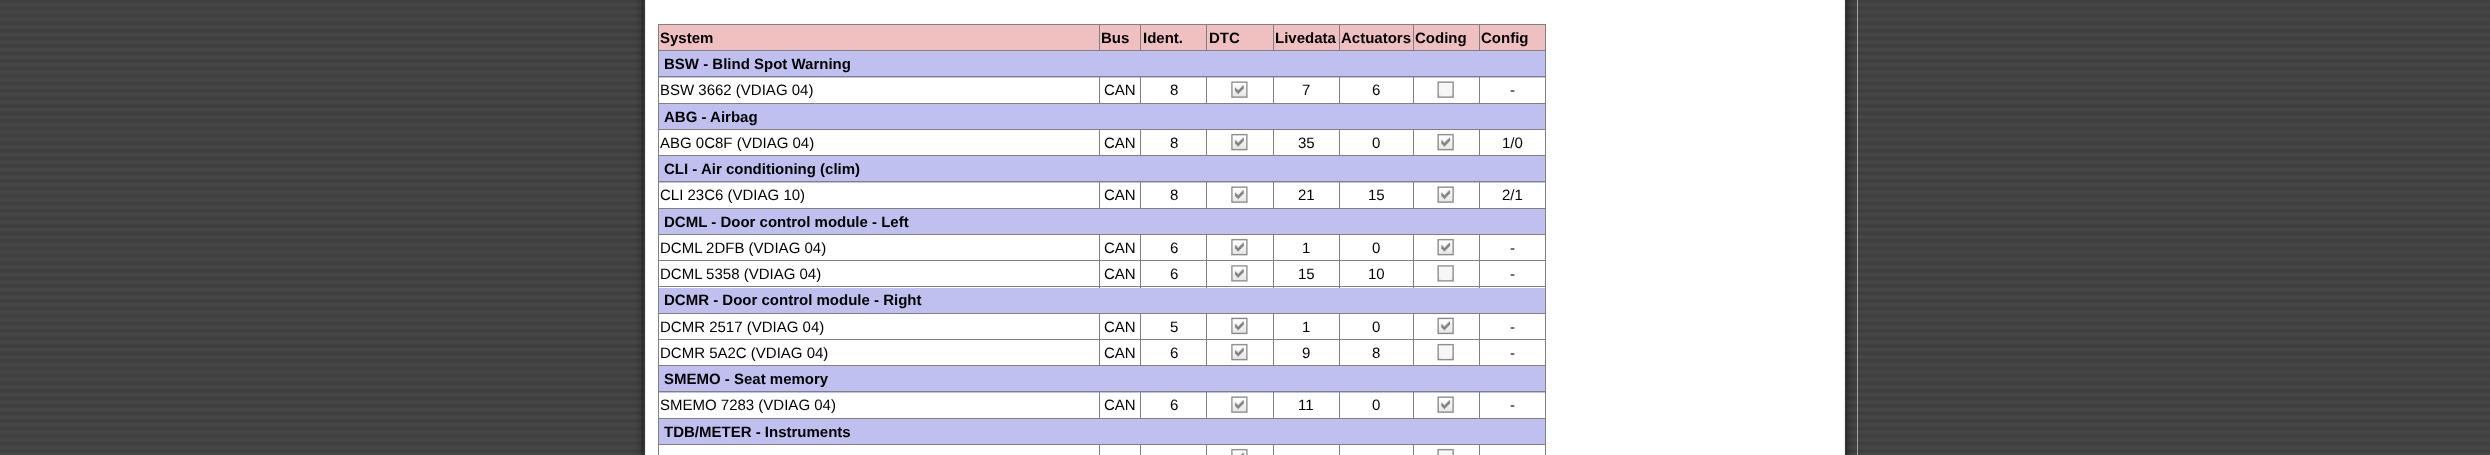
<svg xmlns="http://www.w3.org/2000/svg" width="2490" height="455">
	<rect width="100%" height="100%" fill="#FFFFFF" />
	<image x="0" y="0" width="2490" height="455" href="assets/img1.png" />
	<rect x="1857" y="0" width="1" height="455" fill="#FFFFFF" />
	<image x="633" y="0" width="1225" height="455" href="assets/img2.png" />
	<rect x="658" y="24" width="888" height="1" fill="#808080" />
	<rect x="1545" y="24" width="1" height="431" fill="#808080" />
	<rect x="658" y="24" width="1" height="431" fill="#808080" />
	<rect x="659" y="25" width="886" height="25" fill="#F0C0C0" />
	<text x="660" y="43" font-family="Liberation Sans" font-size="15" font-weight="700" fill="#000000">System</text>
	<rect x="658" y="50" width="888" height="1" fill="#808080" />
	<rect x="1099" y="24" width="1" height="27" fill="#808080" />
	<text x="1101" y="43" font-family="Liberation Sans" font-size="15" font-weight="700" fill="#000000">Bus</text>
	<rect x="1140" y="24" width="1" height="27" fill="#808080" />
	<text x="1143" y="43" font-family="Liberation Sans" font-size="15" font-weight="700" fill="#000000">Ident.</text>
	<rect x="1206" y="24" width="1" height="27" fill="#808080" />
	<text x="1209" y="43" font-family="Liberation Sans" font-size="15" font-weight="700" fill="#000000">DTC</text>
	<rect x="1273" y="24" width="1" height="27" fill="#808080" />
	<text x="1275" y="43" font-family="Liberation Sans" font-size="15" font-weight="700" fill="#000000">Livedata</text>
	<rect x="1339" y="24" width="1" height="27" fill="#808080" />
	<text x="1341" y="43" font-family="Liberation Sans" font-size="15" font-weight="700" fill="#000000">Actuators</text>
	<rect x="1413" y="24" width="1" height="27" fill="#808080" />
	<text x="1415" y="43" font-family="Liberation Sans" font-size="15" font-weight="700" fill="#000000">Coding</text>
	<rect x="1479" y="24" width="1" height="27" fill="#808080" />
	<text x="1481" y="43" font-family="Liberation Sans" font-size="15" font-weight="700" fill="#000000">Config</text>
	<rect x="659" y="51" width="886" height="27" fill="#C0C0F0" />
	<text x="664" y="69" font-family="Liberation Sans" font-size="15" font-weight="700" fill="#000000">BSW - Blind Spot Warning</text>
	<rect x="1479" y="76" width="67" height="1" fill="#808080" />
	<rect x="658" y="103" width="888" height="1" fill="#808080" />
	<rect x="1479" y="76" width="1" height="28" fill="#808080" />
	<rect x="1413" y="76" width="67" height="1" fill="#808080" />
	<rect x="1413" y="76" width="1" height="28" fill="#808080" />
	<rect x="1339" y="76" width="75" height="1" fill="#808080" />
	<rect x="1339" y="76" width="1" height="28" fill="#808080" />
	<rect x="1273" y="76" width="67" height="1" fill="#808080" />
	<rect x="1273" y="76" width="1" height="28" fill="#808080" />
	<rect x="1206" y="76" width="68" height="1" fill="#808080" />
	<rect x="1206" y="76" width="1" height="28" fill="#808080" />
	<rect x="1140" y="76" width="68" height="1" fill="#808080" />
	<rect x="1140" y="76" width="1" height="28" fill="#808080" />
	<rect x="1099" y="76" width="42" height="1" fill="#808080" />
	<rect x="1099" y="76" width="1" height="28" fill="#808080" />
	<rect x="658" y="76" width="442" height="1" fill="#808080" />
	<g font-family="Liberation Sans" font-size="15" fill="#000000">
		<text x="660" y="95">BSW 3662 (VDIAG 04)</text>
		<text x="1104" y="95">CAN</text>
		<text x="1170" y="95">8</text>
	</g>
	<image x="1231" y="81" width="17" height="17" href="assets/img3.png" />
	<g font-family="Liberation Sans" font-size="15" fill="#000000">
		<text x="1302" y="95">7</text>
		<text x="1372" y="95">6</text>
	</g>
	<image x="1437" y="81" width="17" height="17" href="assets/img4.png" />
	<text x="1510" y="95" font-family="Liberation Sans" font-size="15" fill="#000000">-</text>
	<rect x="659" y="104" width="886" height="25" fill="#C0C0F0" />
	<text x="664" y="122" font-family="Liberation Sans" font-size="15" font-weight="700" fill="#000000">ABG - Airbag</text>
	<rect x="1479" y="129" width="67" height="1" fill="#808080" />
	<rect x="658" y="155" width="888" height="1" fill="#808080" />
	<rect x="1479" y="129" width="1" height="27" fill="#808080" />
	<rect x="1413" y="129" width="67" height="1" fill="#808080" />
	<rect x="1413" y="129" width="1" height="27" fill="#808080" />
	<rect x="1339" y="129" width="75" height="1" fill="#808080" />
	<rect x="1339" y="129" width="1" height="27" fill="#808080" />
	<rect x="1273" y="129" width="67" height="1" fill="#808080" />
	<rect x="1273" y="129" width="1" height="27" fill="#808080" />
	<rect x="1206" y="129" width="68" height="1" fill="#808080" />
	<rect x="1206" y="129" width="1" height="27" fill="#808080" />
	<rect x="1140" y="129" width="68" height="1" fill="#808080" />
	<rect x="1140" y="129" width="1" height="27" fill="#808080" />
	<rect x="1099" y="129" width="42" height="1" fill="#808080" />
	<rect x="1099" y="129" width="1" height="27" fill="#808080" />
	<rect x="658" y="129" width="442" height="1" fill="#808080" />
	<g font-family="Liberation Sans" font-size="15" fill="#000000">
		<text x="660" y="148">ABG 0C8F (VDIAG 04)</text>
		<text x="1104" y="148">CAN</text>
		<text x="1170" y="148">8</text>
	</g>
	<image x="1231" y="133" width="17" height="18" href="assets/img5.png" />
	<g font-family="Liberation Sans" font-size="15" fill="#000000">
		<text x="1298" y="148">35</text>
		<text x="1372" y="148">0</text>
	</g>
	<image x="1437" y="133" width="17" height="18" href="assets/img6.png" />
	<text x="1502" y="148" font-family="Liberation Sans" font-size="15" fill="#000000">1/0</text>
	<rect x="659" y="156" width="886" height="27" fill="#C0C0F0" />
	<text x="664" y="174" font-family="Liberation Sans" font-size="15" font-weight="700" fill="#000000">CLI - Air conditioning (clim)</text>
	<rect x="1479" y="181" width="67" height="1" fill="#808080" />
	<rect x="658" y="208" width="888" height="1" fill="#808080" />
	<rect x="1479" y="181" width="1" height="28" fill="#808080" />
	<rect x="1413" y="181" width="67" height="1" fill="#808080" />
	<rect x="1413" y="181" width="1" height="28" fill="#808080" />
	<rect x="1339" y="181" width="75" height="1" fill="#808080" />
	<rect x="1339" y="181" width="1" height="28" fill="#808080" />
	<rect x="1273" y="181" width="67" height="1" fill="#808080" />
	<rect x="1273" y="181" width="1" height="28" fill="#808080" />
	<rect x="1206" y="181" width="68" height="1" fill="#808080" />
	<rect x="1206" y="181" width="1" height="28" fill="#808080" />
	<rect x="1140" y="181" width="68" height="1" fill="#808080" />
	<rect x="1140" y="181" width="1" height="28" fill="#808080" />
	<rect x="1099" y="181" width="42" height="1" fill="#808080" />
	<rect x="1099" y="181" width="1" height="28" fill="#808080" />
	<rect x="658" y="181" width="442" height="1" fill="#808080" />
	<g font-family="Liberation Sans" font-size="15" fill="#000000">
		<text x="660" y="200">CLI 23C6 (VDIAG 10)</text>
		<text x="1104" y="200">CAN</text>
		<text x="1170" y="200">8</text>
	</g>
	<image x="1231" y="186" width="17" height="17" href="assets/img3.png" />
	<g font-family="Liberation Sans" font-size="15" fill="#000000">
		<text x="1298" y="200">21</text>
		<text x="1368" y="200">15</text>
	</g>
	<image x="1437" y="186" width="17" height="17" href="assets/img7.png" />
	<text x="1502" y="200" font-family="Liberation Sans" font-size="15" fill="#000000">2/1</text>
	<rect x="659" y="209" width="886" height="25" fill="#C0C0F0" />
	<text x="664" y="227" font-family="Liberation Sans" font-size="15" font-weight="700" fill="#000000">DCML - Door control module - Left</text>
	<rect x="1479" y="234" width="67" height="1" fill="#808080" />
	<rect x="1479" y="260" width="67" height="1" fill="#808080" />
	<rect x="658" y="286" width="888" height="1" fill="#808080" />
	<rect x="1479" y="260" width="1" height="28" fill="#808080" />
	<rect x="1413" y="260" width="67" height="1" fill="#808080" />
	<rect x="1479" y="234" width="1" height="27" fill="#808080" />
	<rect x="1413" y="234" width="67" height="1" fill="#808080" />
	<rect x="1413" y="260" width="1" height="28" fill="#808080" />
	<rect x="1339" y="260" width="75" height="1" fill="#808080" />
	<rect x="1413" y="234" width="1" height="27" fill="#808080" />
	<rect x="1339" y="234" width="75" height="1" fill="#808080" />
	<rect x="1339" y="260" width="1" height="28" fill="#808080" />
	<rect x="1273" y="260" width="67" height="1" fill="#808080" />
	<rect x="1339" y="234" width="1" height="27" fill="#808080" />
	<rect x="1273" y="234" width="67" height="1" fill="#808080" />
	<rect x="1273" y="260" width="1" height="28" fill="#808080" />
	<rect x="1206" y="260" width="68" height="1" fill="#808080" />
	<rect x="1273" y="234" width="1" height="27" fill="#808080" />
	<rect x="1206" y="234" width="68" height="1" fill="#808080" />
	<rect x="1206" y="260" width="1" height="28" fill="#808080" />
	<rect x="1140" y="260" width="68" height="1" fill="#808080" />
	<rect x="1206" y="234" width="1" height="27" fill="#808080" />
	<rect x="1140" y="234" width="68" height="1" fill="#808080" />
	<rect x="1140" y="260" width="1" height="28" fill="#808080" />
	<rect x="1099" y="260" width="42" height="1" fill="#808080" />
	<rect x="1140" y="234" width="1" height="27" fill="#808080" />
	<rect x="1099" y="234" width="42" height="1" fill="#808080" />
	<rect x="1099" y="260" width="1" height="28" fill="#808080" />
	<rect x="658" y="260" width="442" height="1" fill="#808080" />
	<rect x="1099" y="234" width="1" height="27" fill="#808080" />
	<rect x="658" y="234" width="442" height="1" fill="#808080" />
	<g font-family="Liberation Sans" font-size="15" fill="#000000">
		<text x="660" y="253">DCML 2DFB (VDIAG 04)</text>
		<text x="1104" y="253">CAN</text>
		<text x="1170" y="253">6</text>
	</g>
	<image x="1231" y="238" width="17" height="18" href="assets/img5.png" />
	<g font-family="Liberation Sans" font-size="15" fill="#000000">
		<text x="1302" y="253">1</text>
		<text x="1372" y="253">0</text>
	</g>
	<image x="1437" y="238" width="17" height="18" href="assets/img6.png" />
	<g font-family="Liberation Sans" font-size="15" fill="#000000">
		<text x="1510" y="253">-</text>
		<text x="660" y="279">DCML 5358 (VDIAG 04)</text>
		<text x="1104" y="279">CAN</text>
		<text x="1170" y="279">6</text>
	</g>
	<image x="1231" y="265" width="17" height="17" href="assets/img8.png" />
	<g font-family="Liberation Sans" font-size="15" fill="#000000">
		<text x="1298" y="279">15</text>
		<text x="1368" y="279">10</text>
	</g>
	<image x="1437" y="265" width="17" height="17" href="assets/img9.png" />
	<text x="1510" y="279" font-family="Liberation Sans" font-size="15" fill="#000000">-</text>
	<rect x="659" y="288" width="886" height="25" fill="#C0C0F0" />
	<text x="664" y="305" font-family="Liberation Sans" font-size="15" font-weight="700" fill="#000000">DCMR - Door control module - Right</text>
	<rect x="1479" y="313" width="67" height="1" fill="#808080" />
	<rect x="1479" y="339" width="67" height="1" fill="#808080" />
	<rect x="658" y="365" width="888" height="1" fill="#808080" />
	<rect x="1479" y="339" width="1" height="27" fill="#808080" />
	<rect x="1413" y="339" width="67" height="1" fill="#808080" />
	<rect x="1479" y="313" width="1" height="27" fill="#808080" />
	<rect x="1413" y="313" width="67" height="1" fill="#808080" />
	<rect x="1413" y="339" width="1" height="27" fill="#808080" />
	<rect x="1339" y="339" width="75" height="1" fill="#808080" />
	<rect x="1413" y="313" width="1" height="27" fill="#808080" />
	<rect x="1339" y="313" width="75" height="1" fill="#808080" />
	<rect x="1339" y="339" width="1" height="27" fill="#808080" />
	<rect x="1273" y="339" width="67" height="1" fill="#808080" />
	<rect x="1339" y="313" width="1" height="27" fill="#808080" />
	<rect x="1273" y="313" width="67" height="1" fill="#808080" />
	<rect x="1273" y="339" width="1" height="27" fill="#808080" />
	<rect x="1206" y="339" width="68" height="1" fill="#808080" />
	<rect x="1273" y="313" width="1" height="27" fill="#808080" />
	<rect x="1206" y="313" width="68" height="1" fill="#808080" />
	<rect x="1206" y="339" width="1" height="27" fill="#808080" />
	<rect x="1140" y="339" width="68" height="1" fill="#808080" />
	<rect x="1206" y="313" width="1" height="27" fill="#808080" />
	<rect x="1140" y="313" width="68" height="1" fill="#808080" />
	<rect x="1140" y="339" width="1" height="27" fill="#808080" />
	<rect x="1099" y="339" width="42" height="1" fill="#808080" />
	<rect x="1140" y="313" width="1" height="27" fill="#808080" />
	<rect x="1099" y="313" width="42" height="1" fill="#808080" />
	<rect x="1099" y="339" width="1" height="27" fill="#808080" />
	<rect x="658" y="339" width="442" height="1" fill="#808080" />
	<rect x="1099" y="313" width="1" height="27" fill="#808080" />
	<rect x="658" y="313" width="442" height="1" fill="#808080" />
	<g font-family="Liberation Sans" font-size="15" fill="#000000">
		<text x="660" y="332">DCMR 2517 (VDIAG 04)</text>
		<text x="1104" y="332">CAN</text>
		<text x="1170" y="332">5</text>
	</g>
	<image x="1231" y="317" width="17" height="18" href="assets/img10.png" />
	<g font-family="Liberation Sans" font-size="15" fill="#000000">
		<text x="1302" y="332">1</text>
		<text x="1372" y="332">0</text>
	</g>
	<image x="1437" y="317" width="17" height="18" href="assets/img11.png" />
	<g font-family="Liberation Sans" font-size="15" fill="#000000">
		<text x="1510" y="332">-</text>
		<text x="660" y="358">DCMR 5A2C (VDIAG 04)</text>
		<text x="1104" y="358">CAN</text>
		<text x="1170" y="358">6</text>
	</g>
	<image x="1231" y="343" width="17" height="18" href="assets/img5.png" />
	<g font-family="Liberation Sans" font-size="15" fill="#000000">
		<text x="1302" y="358">9</text>
		<text x="1372" y="358">8</text>
	</g>
	<image x="1437" y="343" width="17" height="18" href="assets/img12.png" />
	<text x="1510" y="358" font-family="Liberation Sans" font-size="15" fill="#000000">-</text>
	<rect x="659" y="366" width="886" height="27" fill="#C0C0F0" />
	<text x="664" y="384" font-family="Liberation Sans" font-size="15" font-weight="700" fill="#000000">SMEMO - Seat memory</text>
	<rect x="1479" y="391" width="67" height="1" fill="#808080" />
	<rect x="658" y="418" width="888" height="1" fill="#808080" />
	<rect x="1479" y="391" width="1" height="28" fill="#808080" />
	<rect x="1413" y="391" width="67" height="1" fill="#808080" />
	<rect x="1413" y="391" width="1" height="28" fill="#808080" />
	<rect x="1339" y="391" width="75" height="1" fill="#808080" />
	<rect x="1339" y="391" width="1" height="28" fill="#808080" />
	<rect x="1273" y="391" width="67" height="1" fill="#808080" />
	<rect x="1273" y="391" width="1" height="28" fill="#808080" />
	<rect x="1206" y="391" width="68" height="1" fill="#808080" />
	<rect x="1206" y="391" width="1" height="28" fill="#808080" />
	<rect x="1140" y="391" width="68" height="1" fill="#808080" />
	<rect x="1140" y="391" width="1" height="28" fill="#808080" />
	<rect x="1099" y="391" width="42" height="1" fill="#808080" />
	<rect x="1099" y="391" width="1" height="28" fill="#808080" />
	<rect x="658" y="391" width="442" height="1" fill="#808080" />
	<g font-family="Liberation Sans" font-size="15" fill="#000000">
		<text x="660" y="410">SMEMO 7283 (VDIAG 04)</text>
		<text x="1104" y="410">CAN</text>
		<text x="1170" y="410">6</text>
	</g>
	<image x="1231" y="396" width="17" height="17" href="assets/img3.png" />
	<g font-family="Liberation Sans" font-size="15" fill="#000000">
		<text x="1298" y="410">11</text>
		<text x="1372" y="410">0</text>
	</g>
	<image x="1437" y="396" width="17" height="17" href="assets/img7.png" />
	<text x="1510" y="410" font-family="Liberation Sans" font-size="15" fill="#000000">-</text>
	<rect x="659" y="419" width="886" height="25" fill="#C0C0F0" />
	<text x="664" y="437" font-family="Liberation Sans" font-size="15" font-weight="700" fill="#000000">TDB/METER - Instruments</text>
	<rect x="1479" y="444" width="67" height="1" fill="#808080" />
	<rect x="1479" y="444" width="1" height="11" fill="#808080" />
	<rect x="1413" y="444" width="67" height="1" fill="#808080" />
	<rect x="1413" y="444" width="1" height="11" fill="#808080" />
	<rect x="1339" y="444" width="75" height="1" fill="#808080" />
	<rect x="1339" y="444" width="1" height="11" fill="#808080" />
	<rect x="1273" y="444" width="67" height="1" fill="#808080" />
	<rect x="1273" y="444" width="1" height="11" fill="#808080" />
	<rect x="1206" y="444" width="68" height="1" fill="#808080" />
	<rect x="1206" y="444" width="1" height="11" fill="#808080" />
	<rect x="1140" y="444" width="68" height="1" fill="#808080" />
	<rect x="1140" y="444" width="1" height="11" fill="#808080" />
	<rect x="1099" y="444" width="42" height="1" fill="#808080" />
	<rect x="1099" y="444" width="1" height="11" fill="#808080" />
	<rect x="658" y="444" width="442" height="1" fill="#808080" />
	<image x="1231" y="448" width="17" height="7" href="assets/img13.png" />
	<image x="1437" y="448" width="17" height="7" href="assets/img14.png" />
</svg>
